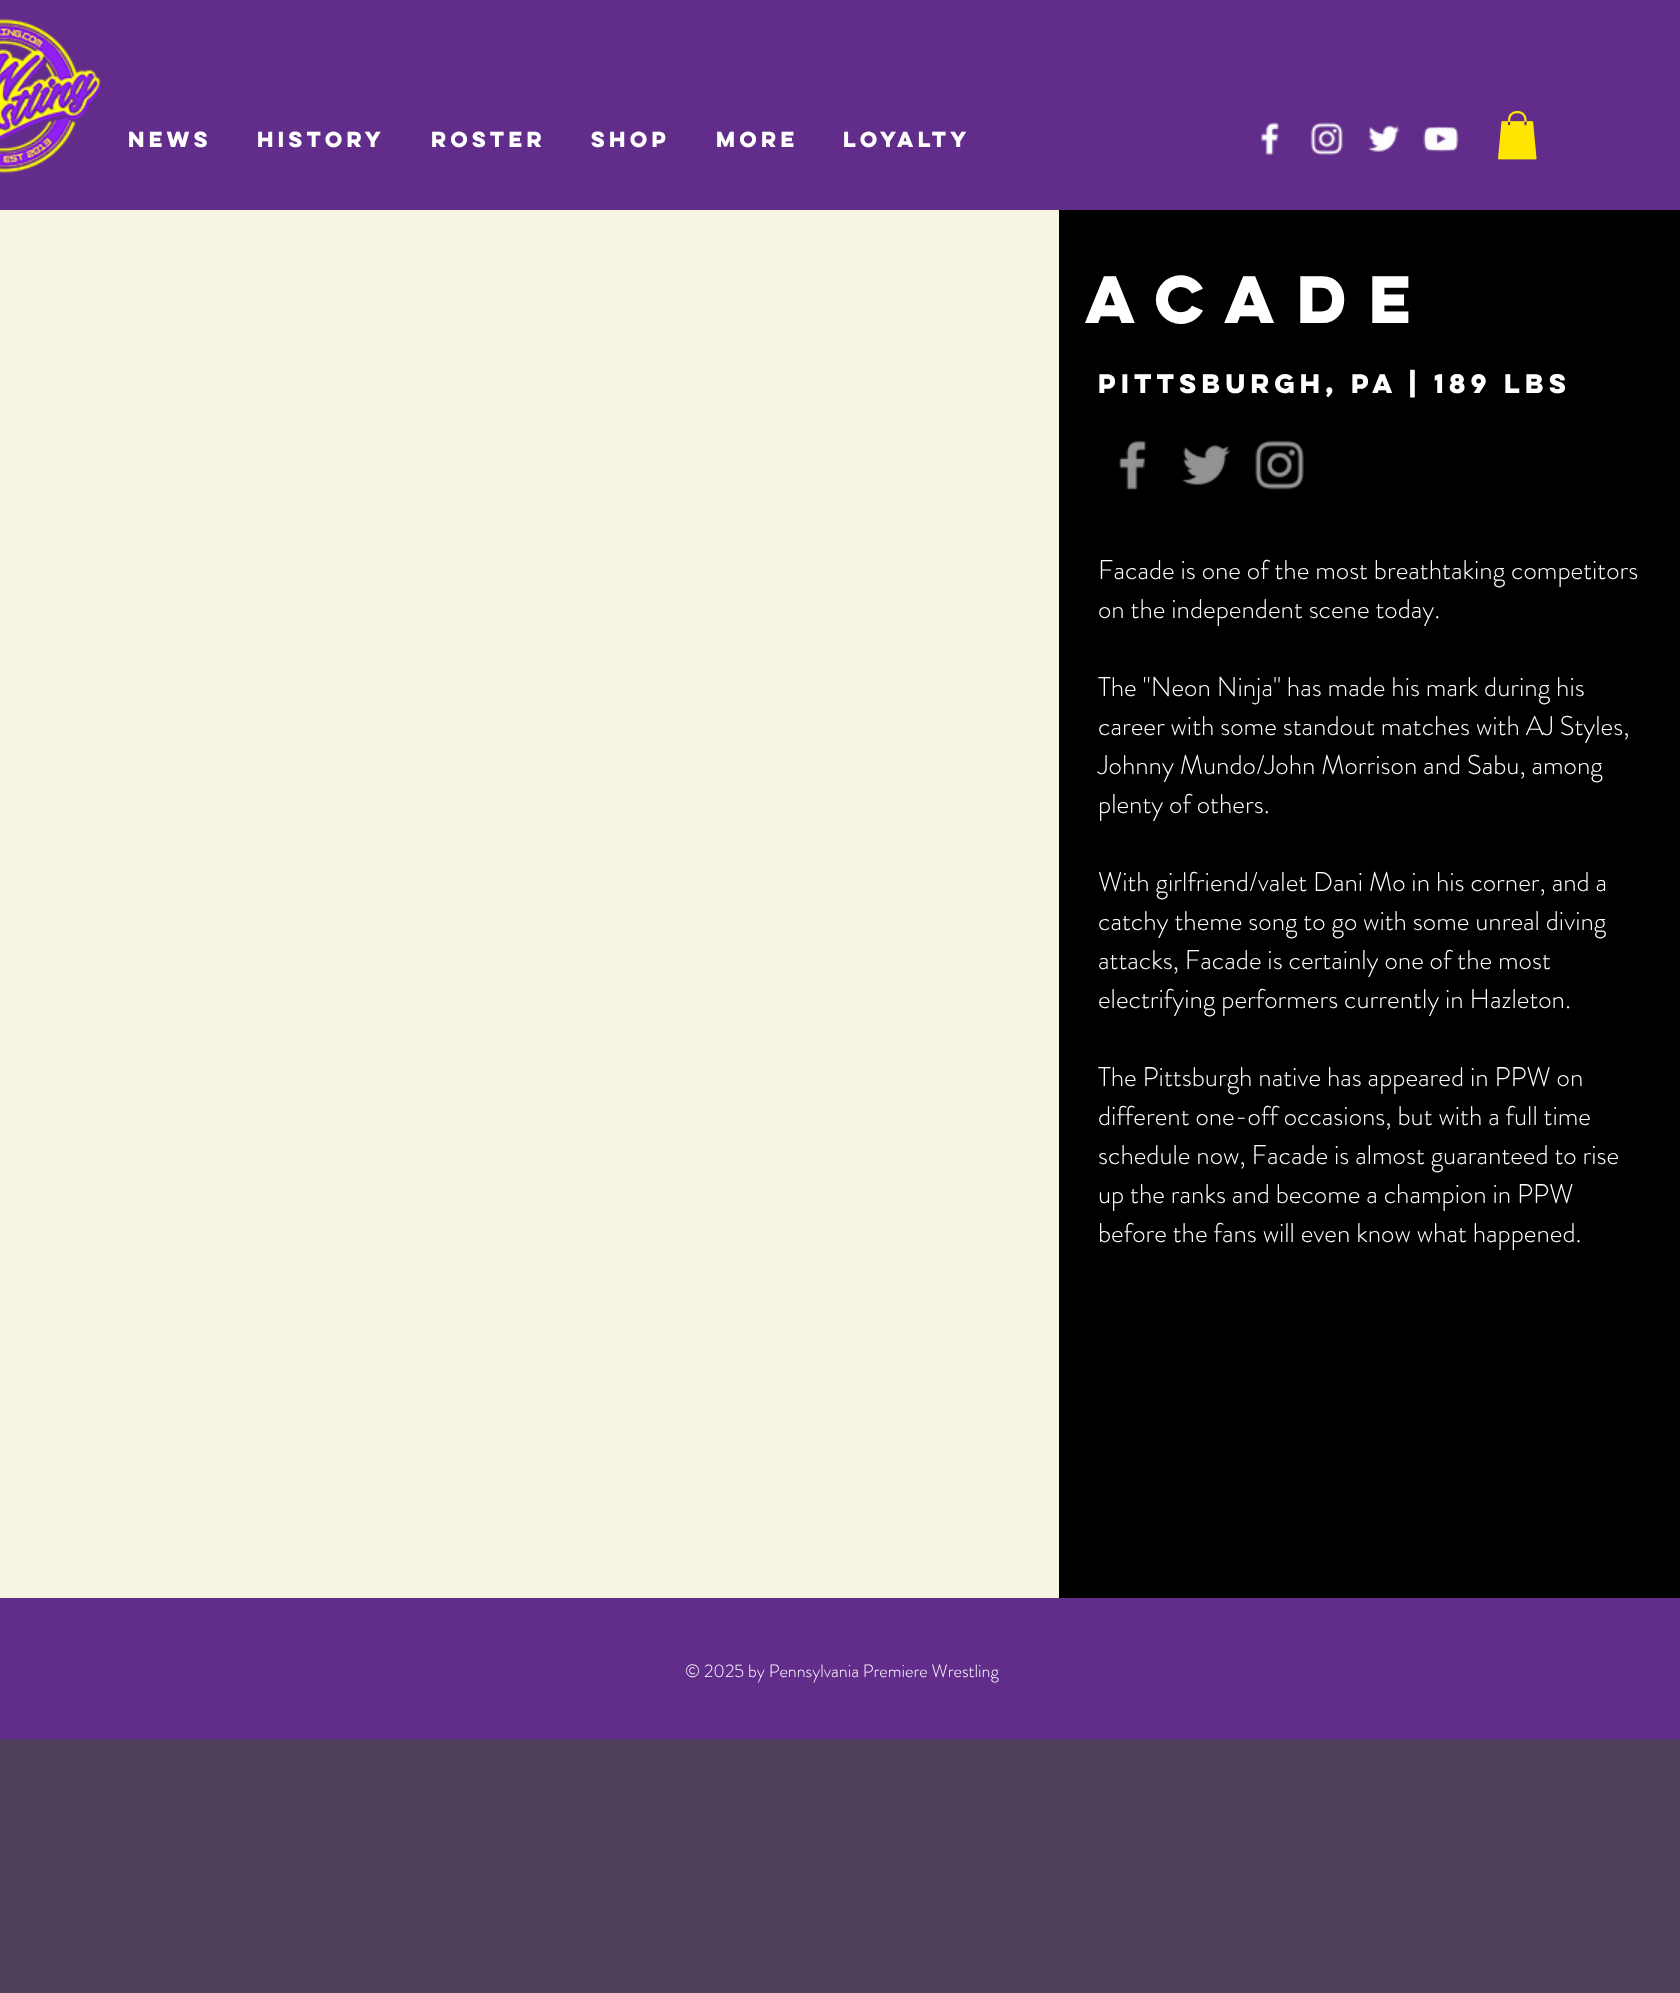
<svg xmlns="http://www.w3.org/2000/svg" width="1680" height="1993">
	<rect width="100%" height="100%" fill="#4D3F5C" />
	<rect x="0" y="0" width="1680" height="210" fill="#622D8A" />
	<image x="0" y="19" width="101" height="154" href="assets/img1.png" />
	<g font-family="'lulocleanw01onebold'" font-size="19.5" font-weight="700" fill="#FFFFFF">
		<text x="128" y="147">NEWS</text>
		<text x="257" y="147">HISTORY</text>
		<text x="431" y="147">ROSTER</text>
		<text x="591" y="147">SHOP</text>
		<text x="716" y="147">MORE</text>
		<text x="843" y="147">Loyalty</text>
	</g>
	<image x="1261" y="122" width="18" height="33" href="assets/img2.png" />
	<image x="1310" y="122" width="33" height="33" href="assets/img3.png" />
	<image x="1368" y="125" width="32" height="27" href="assets/img4.png" />
	<image x="1423" y="126" width="36" height="26" href="assets/img5.png" />
	<image x="1498" y="111" width="39" height="49" href="assets/img6.png" />
	<rect x="0" y="210" width="1059" height="1388" fill="#F7F5E1" />
	<rect x="1059" y="210" width="621" height="1388" fill="#000000" />
	<text x="1085" y="323" font-family="'lulocleanw01onebold'" font-size="60" font-weight="700" letter-spacing="9" fill="#FFFFFF">acade</text>
	<text x="1098" y="393" font-family="'lulocleanw01onebold'" font-size="24" font-weight="700" fill="#FFFFFF">Pittsburgh, PA | 189 lbs</text>
	<image x="1118" y="440" width="29" height="50" href="assets/img7.png" />
	<image x="1182" y="445" width="49" height="40" href="assets/img8.png" />
	<image x="1255" y="440" width="49" height="50" href="assets/img9.png" />
	<g font-family="'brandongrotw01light'" font-size="27" font-weight="300" fill="#FFFFFF">
		<text x="1098" y="579">Facade is one of the most breathtaking competitors</text>
		<text x="1098" y="618">on the independent scene today.</text>
		<text x="1098" y="696">The "Neon Ninja" has made his mark during his</text>
		<text x="1098" y="735">career with some standout matches with AJ Styles,</text>
		<text x="1098" y="774">Johnny Mundo/John Morrison and Sabu, among</text>
		<text x="1098" y="813">plenty of others.</text>
		<text x="1098" y="891">With girlfriend/valet Dani Mo in his corner, and a</text>
		<text x="1098" y="930">catchy theme song to go with some unreal diving</text>
		<text x="1098" y="969">attacks, Facade is certainly one of the most</text>
		<text x="1098" y="1008">electrifying performers currently in Hazleton.</text>
		<text x="1098" y="1086">The Pittsburgh native has appeared in PPW on</text>
		<text x="1098" y="1125">different one-off occasions, but with a full time</text>
		<text x="1098" y="1164">schedule now, Facade is almost guaranteed to rise</text>
		<text x="1098" y="1203">up the ranks and become a champion in PPW</text>
		<text x="1098" y="1242">before the fans will even know what happened.</text>
	</g>
	<rect x="0" y="1598" width="1680" height="141" fill="#622D8A" />
	<text x="685" y="1677" font-family="'brandongrotw01light'" font-size="18" font-weight="300" fill="#FFFFFF">© 2025 by Pennsylvania Premiere Wrestling</text>
</svg>
